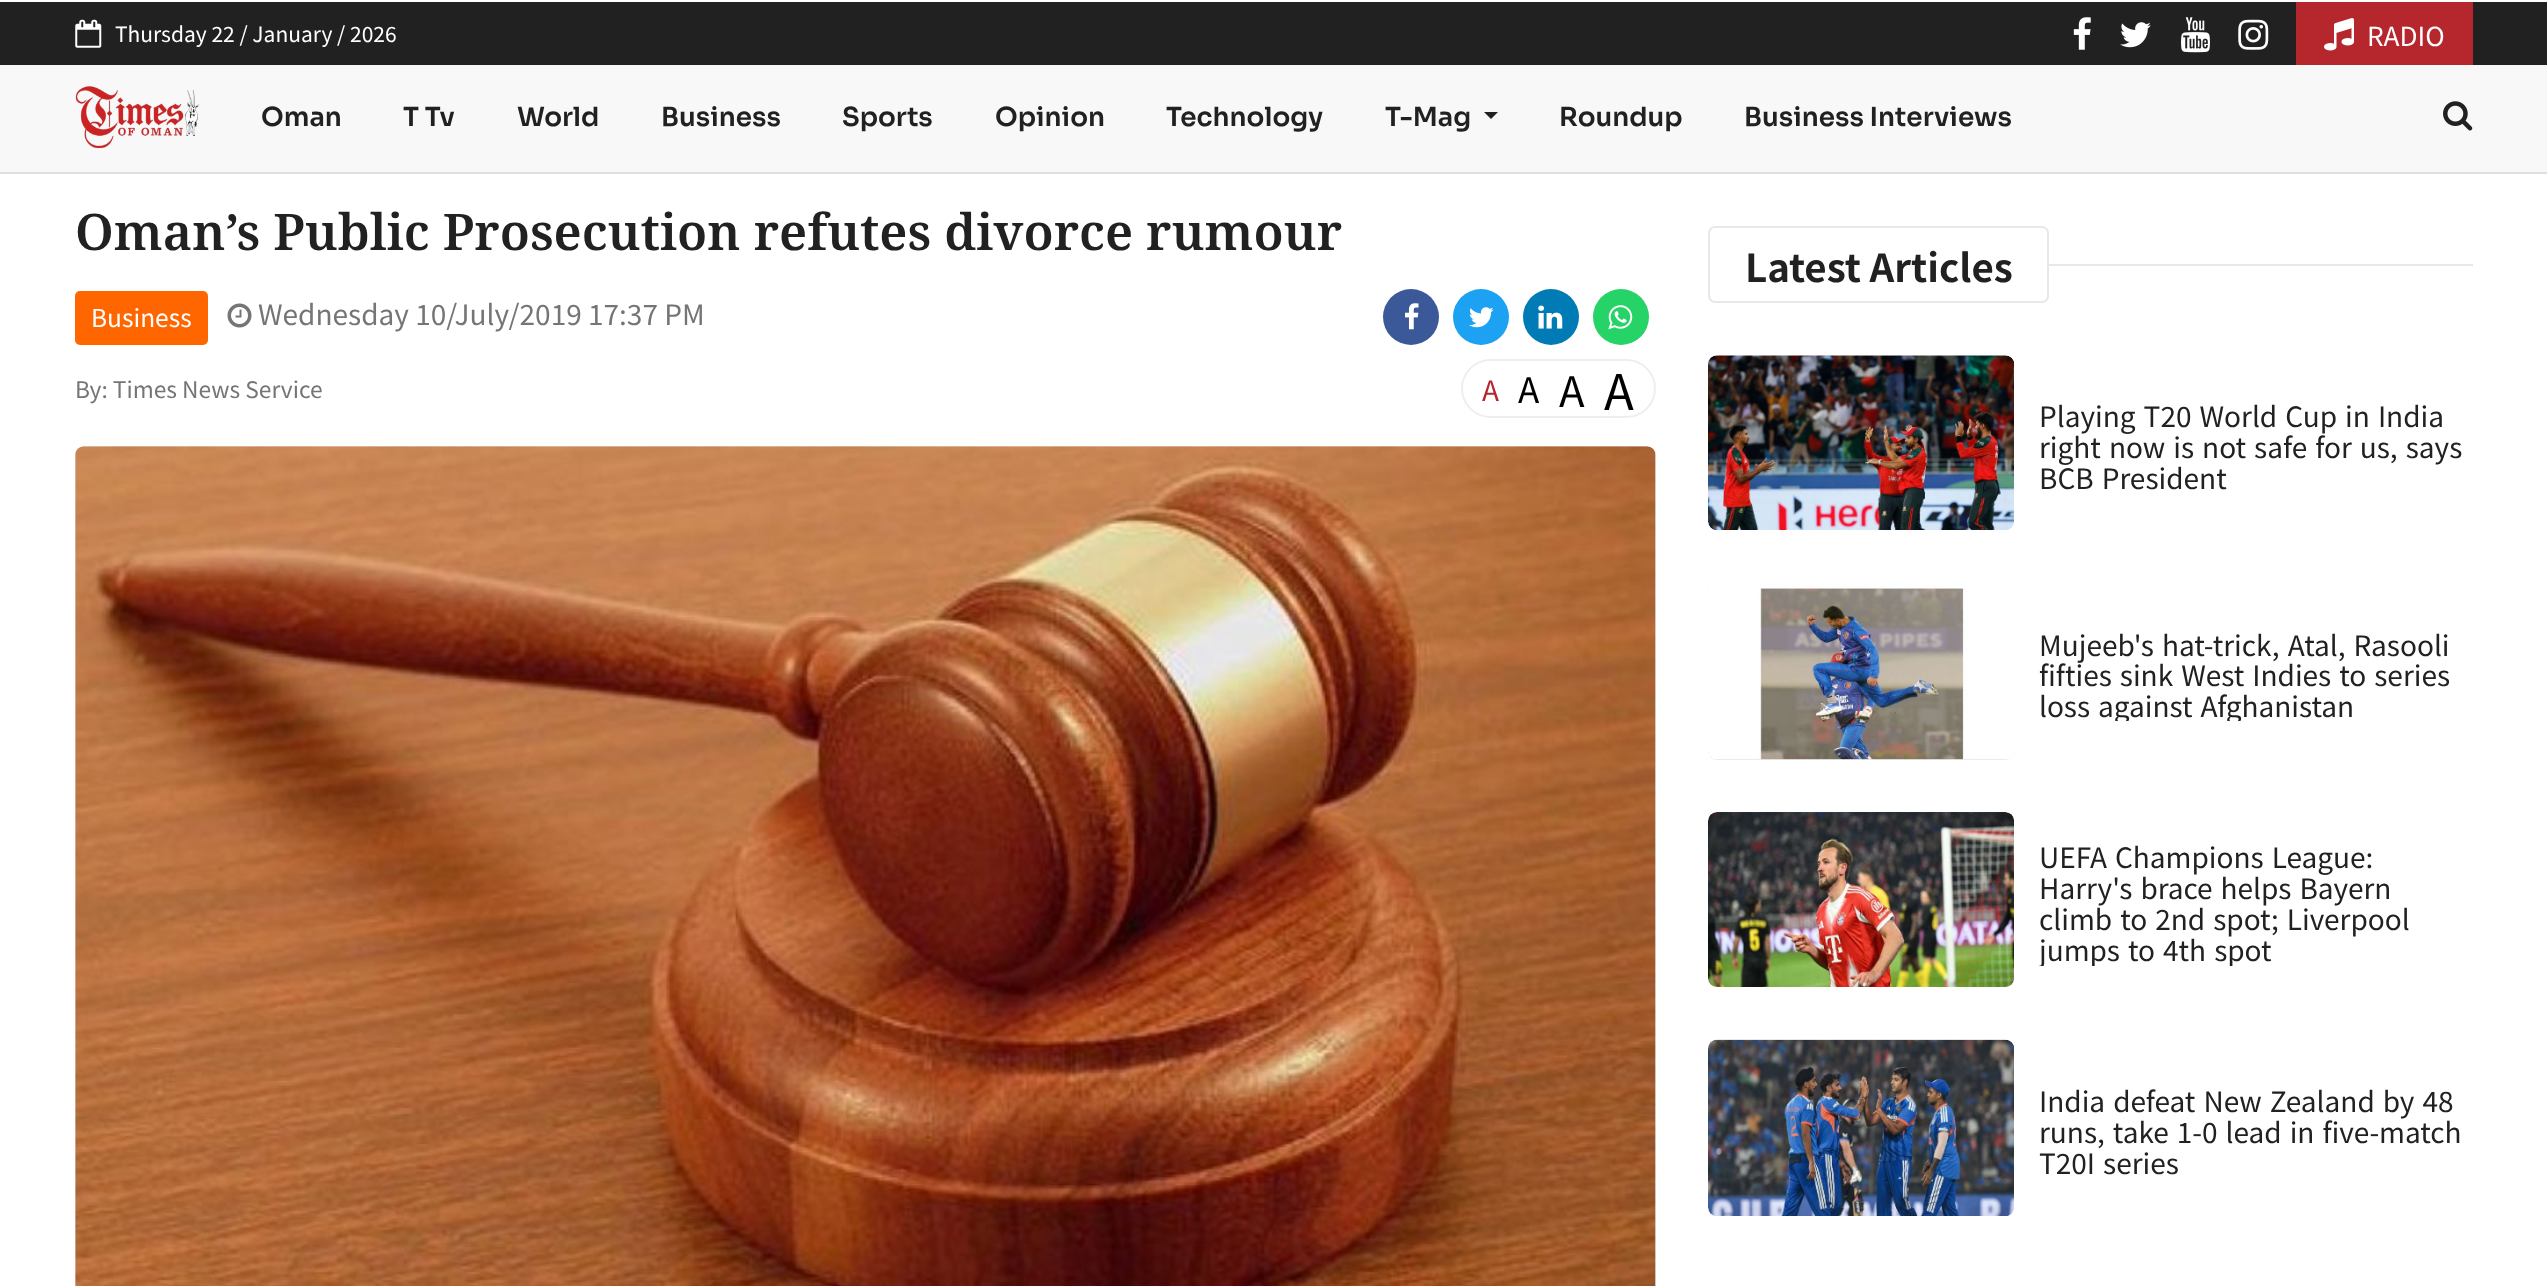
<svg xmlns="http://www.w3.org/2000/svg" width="2547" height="1286">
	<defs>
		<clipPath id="clip1"><rect x="2039" y="630" width="434" height="91" /></clipPath>
		<clipPath id="clip2"><rect x="2039" y="842" width="434" height="124" /></clipPath>
	</defs>
	<rect width="100%" height="100%" fill="#FFFFFF" />
	<rect x="0" y="2" width="2547" height="63" fill="#212121" />
	<image x="75" y="19" width="27" height="29" href="assets/img1.png" />
	<text x="115" y="42" font-family="Noto Sans JP" font-size="21" fill="#FFFFFF">Thursday 22 / January / 2026</text>
	<image x="2073" y="17" width="18" height="33" href="assets/img2.png" />
	<image x="2120" y="22" width="31" height="26" href="assets/img3.png" />
	<image x="2181" y="17" width="29" height="36" href="assets/img4.png" />
	<image x="2238" y="19" width="31" height="31" href="assets/img5.png" />
	<rect x="2296" y="2" width="177" height="63" fill="#B5272D" />
	<image x="2324" y="18" width="30" height="33" href="assets/img6.png" />
	<text x="2367" y="46" font-family="Noto Sans JP" font-size="26.25" fill="#FFFFFF">RADIO</text>
	<rect x="0" y="65" width="2547" height="107" fill="#F8F8F8" />
	<rect x="0" y="172" width="2547" height="2" fill="#E0E0E0" />
	<image x="75" y="86" width="125" height="63" href="assets/img7.png" />
	<g font-family="Sora" font-size="26.25" font-weight="600" fill="#212121">
		<text x="261" y="126">Oman</text>
		<text x="403" y="126">T Tv</text>
		<text x="517" y="126">World</text>
		<text x="661" y="126">Business</text>
		<text x="842" y="126">Sports</text>
		<text x="995" y="126">Opinion</text>
		<text x="1166" y="126">Technology</text>
		<text x="1385" y="126">T-Mag</text>
	</g>
	<path d="M1484 112H1498L1491 119Z" fill="#212121" />
	<g font-family="Sora" font-size="26.25" font-weight="600" fill="#212121">
		<text x="1559" y="126">Roundup</text>
		<text x="1744" y="126">Business Interviews</text>
	</g>
	<image x="2443" y="101" width="30" height="30" href="assets/img8.png" />
	<text x="75" y="250" font-family="Noto Serif" font-size="50.4" font-weight="600" fill="#212121">Oman’s Public Prosecution refutes divorce rumour</text>
	<rect x="75" y="291" width="133" height="54" rx="5" fill="#FF6600" />
	<text x="91" y="327" font-family="Noto Sans JP" font-size="24.5" fill="#FFFFFF">Business</text>
	<image x="227" y="303" width="25" height="25" href="assets/img9.png" />
	<text x="258" y="325" font-family="Noto Sans JP" font-size="28" fill="#757575">Wednesday 10/July/2019 17:37 PM</text>
	<circle cx="1411" cy="317" r="28" fill="#3B5999" />
	<image x="1405" y="303" width="14" height="27" href="assets/img10.png" />
	<circle cx="1481" cy="317" r="28" fill="#1DA1F2" />
	<image x="1469" y="307" width="25" height="21" href="assets/img11.png" />
	<circle cx="1551" cy="317" r="28" fill="#007BB5" />
	<image x="1538" y="305" width="25" height="24" href="assets/img12.png" />
	<circle cx="1621" cy="317" r="28" fill="#25D366" />
	<image x="1608" y="305" width="25" height="25" href="assets/img13.png" />
	<text x="75" y="398" font-family="Noto Sans JP" font-size="22.75" fill="#757575">By: Times News Service</text>
	<rect x="1462" y="360" width="193" height="57" rx="28.5" fill="none" stroke="#EEEEEE" stroke-width="2" />
	<text x="1482" y="401" font-family="Noto Sans JP" font-size="28" fill="#B5272D">A</text>
	<text x="1518" y="403" font-family="Noto Sans JP" font-size="35" fill="#000000">A</text>
	<text x="1559" y="407" font-family="Noto Sans JP" font-size="42" fill="#000000">A</text>
	<text x="1604" y="410" font-family="Noto Sans JP" font-size="49" fill="#000000">A</text>
	<rect x="75" y="446" width="1581" height="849" rx="9" fill="#E8E8E8" />
	<image x="75" y="446" width="1581" height="840" href="assets/img14.png" />
	<rect x="1709" y="227" width="339" height="75" rx="6" fill="none" stroke="#E8E8E8" stroke-width="2" />
	<text x="1745" y="282" font-family="Noto Sans JP" font-size="38.5" font-weight="700" fill="#212121">Latest Articles</text>
	<rect x="2049" y="264" width="424" height="2" fill="#E8E8E8" />
	<rect x="1708" y="355" width="306" height="175" rx="9" fill="#E8E8E8" />
	<image x="1708" y="355" width="306" height="175" href="assets/img15.png" />
	<g font-family="Noto Sans JP" font-size="28" fill="#212121">
		<text x="2039" y="427" word-spacing="1.75">Playing T20 World Cup in India</text>
		<text x="2039" y="458" word-spacing="1.75">right now is not safe for us, says</text>
		<text x="2039" y="489" word-spacing="1.75">BCB President</text>
	</g>
	<rect x="1708" y="583" width="306" height="177" rx="9" fill="#E8E8E8" />
	<image x="1708" y="583" width="306" height="177" href="assets/img16.png" />
	<g font-family="Noto Sans JP" font-size="28" fill="#212121">
		<text x="2039" y="656" word-spacing="1.75">Mujeeb's hat-trick, Atal, Rasooli</text>
		<text x="2039" y="686" word-spacing="1.75">fifties sink West Indies to series</text>
	</g>
	<g clip-path="url(#clip1)">
		<text x="2039" y="717" word-spacing="1.75" font-family="Noto Sans JP" font-size="28" fill="#212121">loss against Afghanistan</text>
	</g>
	<rect x="1708" y="812" width="306" height="175" rx="9" fill="#E8E8E8" />
	<image x="1708" y="812" width="306" height="175" href="assets/img17.png" />
	<g font-family="Noto Sans JP" font-size="28" fill="#212121">
		<text x="2039" y="868" word-spacing="1.75">UEFA Champions League:</text>
		<text x="2039" y="899" word-spacing="1.75">Harry's brace helps Bayern</text>
		<text x="2039" y="930" word-spacing="1.75">climb to 2nd spot; Liverpool</text>
	</g>
	<g clip-path="url(#clip2)">
		<text x="2039" y="961" word-spacing="1.75" font-family="Noto Sans JP" font-size="28" fill="#212121">jumps to 4th spot</text>
	</g>
	<rect x="1708" y="1040" width="306" height="176" rx="9" fill="#E8E8E8" />
	<image x="1708" y="1039" width="306" height="177" href="assets/img18.png" />
	<g font-family="Noto Sans JP" font-size="28" fill="#212121">
		<text x="2039" y="1112" word-spacing="1.75">India defeat New Zealand by 48</text>
		<text x="2039" y="1143" word-spacing="1.75">runs, take 1-0 lead in five-match</text>
		<text x="2039" y="1174" word-spacing="1.75">T20I series</text>
	</g>
</svg>
